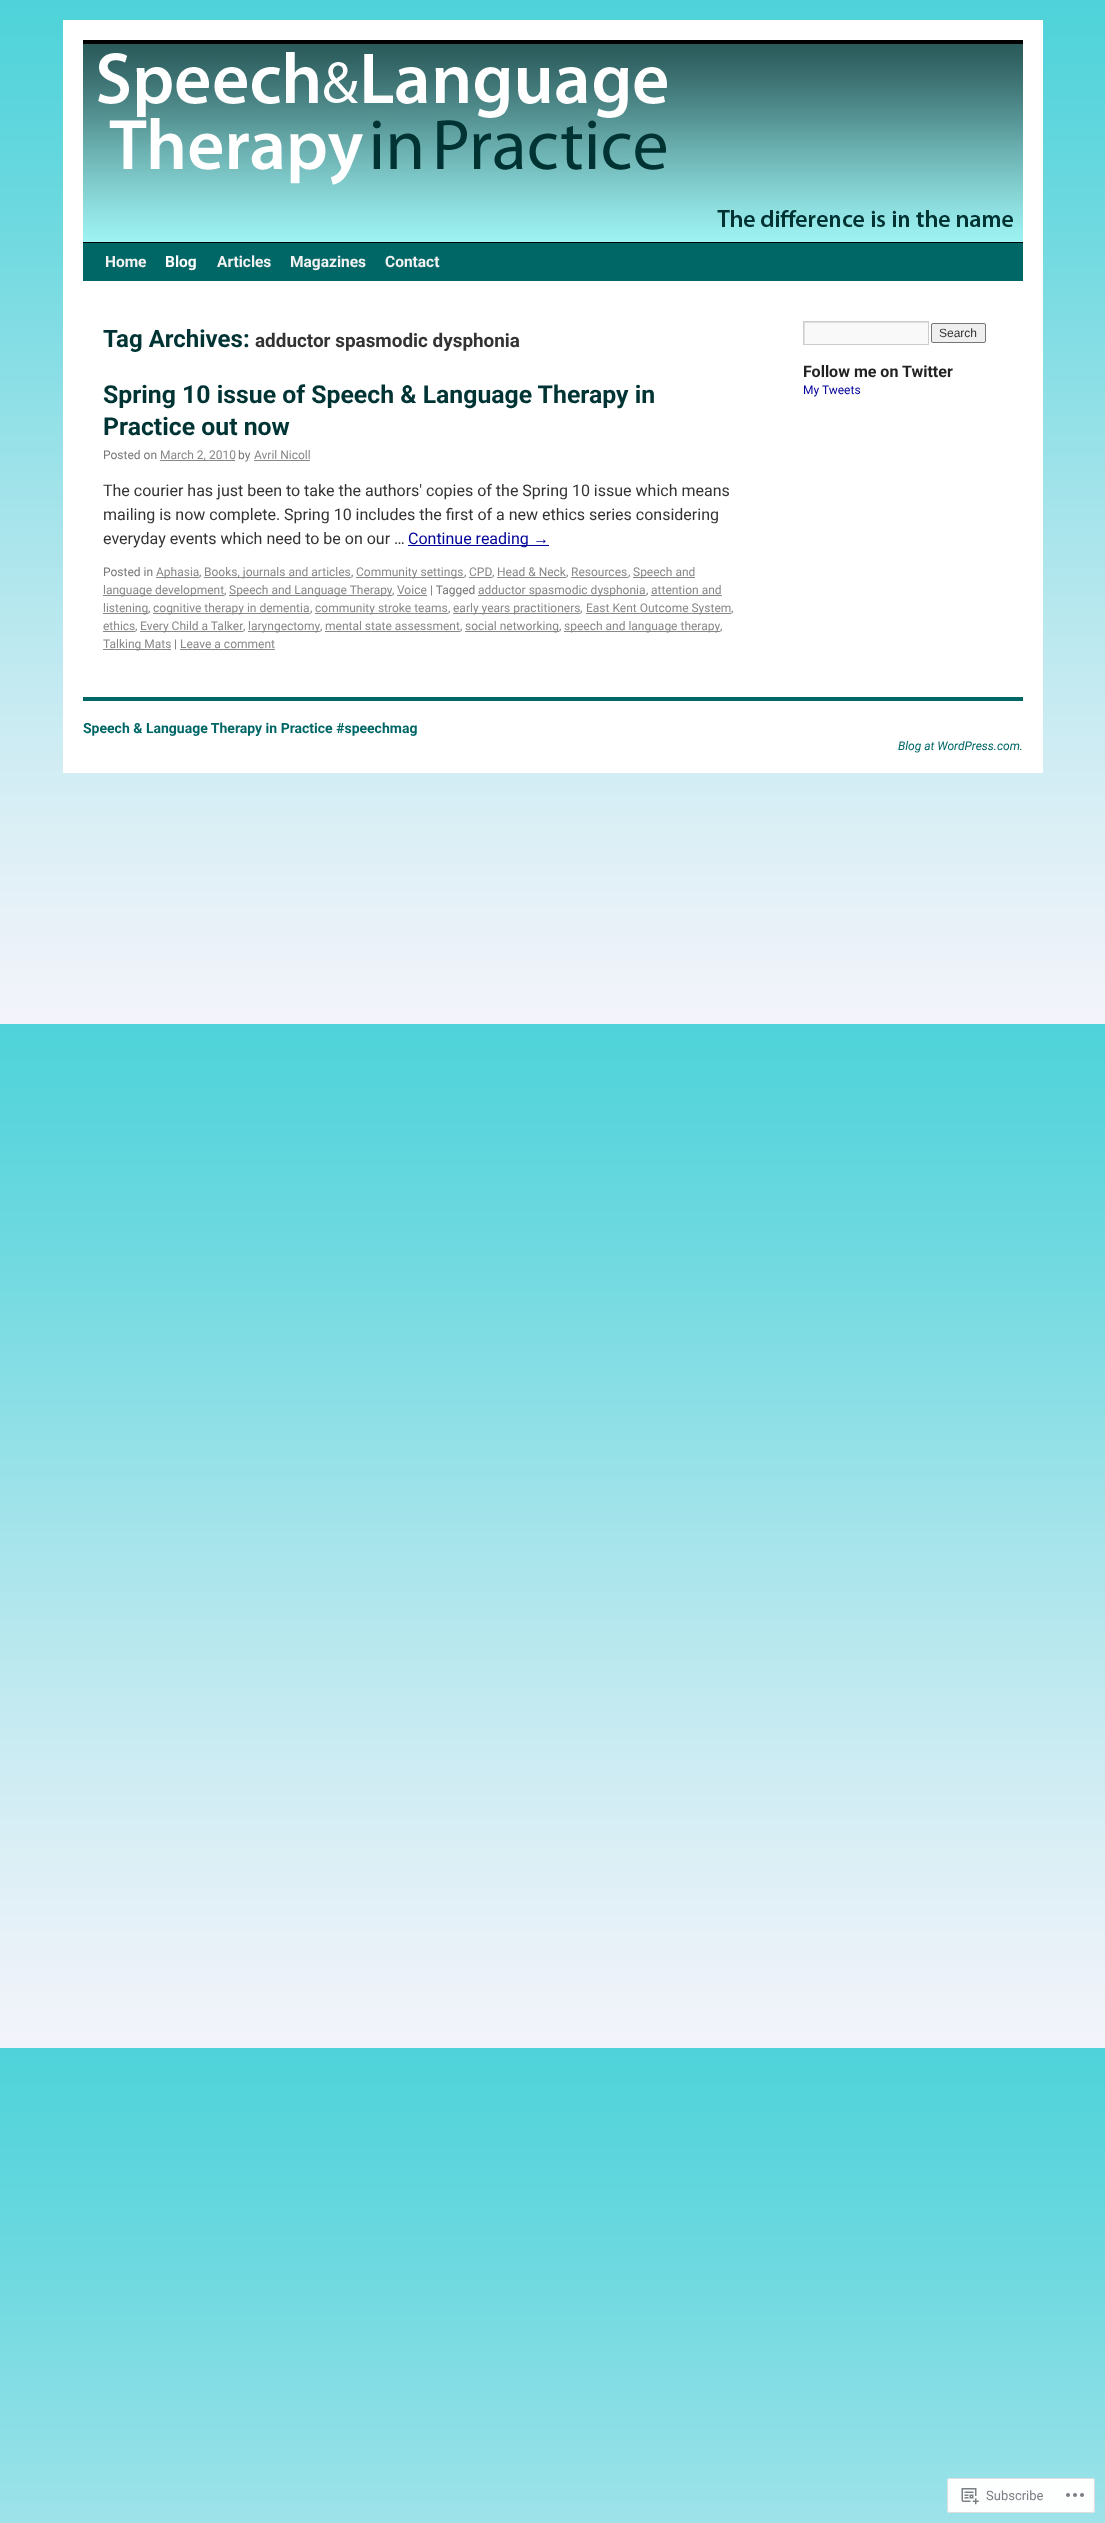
<svg xmlns="http://www.w3.org/2000/svg" width="1105" height="2523">
	<defs>
		<clipPath id="clip1"><rect x="804" y="322" width="124" height="22" /></clipPath>
	</defs>
	<rect width="100%" height="100%" fill="#FFFFFF" />
	<image x="0" y="0" width="1105" height="2523" href="assets/img1.png" />
	<rect x="63" y="20" width="980" height="753" fill="#FFFFFF" />
	<rect x="83" y="40" width="940" height="4" fill="#000000" />
	<rect x="83" y="242" width="940" height="1" fill="#000000" />
	<image x="83" y="44" width="940" height="198" href="assets/img2.png" />
	<rect x="83" y="243" width="940" height="38" fill="#006666" />
	<text x="105" y="267" font-family="Roboto" font-size="15.5" font-weight="700" fill="#F2F2F2">Home</text>
	<text x="165" y="267" font-family="Roboto" font-size="15.5" font-weight="700" fill="#FFFFFF">Blog</text>
	<g font-family="Roboto" font-size="15.5" font-weight="700" fill="#F2F2F2">
		<text x="217" y="267">Articles</text>
		<text x="290" y="267">Magazines</text>
		<text x="385" y="267">Contact</text>
	</g>
	<text x="103" y="347" font-family="Roboto" font-size="24" font-weight="700" fill="#003333">Tag Archives:</text>
	<text x="255" y="347" font-family="Roboto" font-size="18.9" font-weight="700" fill="#333333">adductor spasmodic dysphonia</text>
	<g font-family="Roboto" font-size="24.8" font-weight="700" fill="#003333">
		<text x="103" y="403">Spring 10 issue of Speech &amp; Language Therapy in</text>
		<text x="103" y="435">Practice out now</text>
	</g>
	<text x="103" y="459" font-family="Roboto" font-size="12" fill="#777777">Posted on</text>
	<rect x="160" y="460" width="75" height="1" fill="#888888" />
	<text x="160" y="459" font-family="Roboto" font-size="12" fill="#888888">March 2, 2010</text>
	<text x="238" y="459" font-family="Roboto" font-size="12" fill="#777777">by</text>
	<text x="254" y="459" font-family="Roboto" font-size="12" fill="#888888">Avril Nicoll</text>
	<rect x="254" y="460" width="56" height="1" fill="#888888" />
	<g font-family="Roboto" font-size="16" fill="#333333">
		<text x="103" y="496">The courier has just been to take the authors' copies of the Spring 10 issue which means</text>
		<text x="103" y="520">mailing is now complete. Spring 10 includes the first of a new ethics series considering</text>
		<text x="103" y="544">everyday events which need to be on our …</text>
	</g>
	<rect x="408" y="545" width="141" height="1" fill="#000099" />
	<text x="408" y="544" font-family="Roboto" font-size="16" fill="#000099">Continue reading</text>
	<text x="533" y="544" font-family="Liberation Sans" font-size="16" fill="#000099">→</text>
	<text x="103" y="576" font-family="Roboto" font-size="12" fill="#777777">Posted in</text>
	<rect x="156" y="577" width="43" height="1" fill="#888888" />
	<text x="156" y="576" font-family="Roboto" font-size="12" fill="#888888">Aphasia</text>
	<text x="199" y="576" font-family="Roboto" font-size="12" fill="#777777">,</text>
	<rect x="204" y="577" width="147" height="1" fill="#888888" />
	<text x="204" y="576" font-family="Roboto" font-size="12" fill="#888888">Books, journals and articles</text>
	<text x="351" y="576" font-family="Roboto" font-size="12" fill="#777777">,</text>
	<rect x="356" y="577" width="108" height="1" fill="#888888" />
	<text x="356" y="576" font-family="Roboto" font-size="12" fill="#888888">Community settings</text>
	<text x="464" y="576" font-family="Roboto" font-size="12" fill="#777777">,</text>
	<text x="469" y="576" font-family="Roboto" font-size="12" fill="#888888">CPD</text>
	<rect x="469" y="577" width="23" height="1" fill="#888888" />
	<text x="492" y="576" font-family="Roboto" font-size="12" fill="#777777">,</text>
	<text x="497" y="576" font-family="Roboto" font-size="12" fill="#888888">Head &amp; Neck</text>
	<text x="566" y="576" font-family="Roboto" font-size="12" fill="#777777">,</text>
	<rect x="497" y="577" width="69" height="1" fill="#888888" />
	<text x="571" y="576" font-family="Roboto" font-size="12" fill="#888888">Resources</text>
	<rect x="571" y="577" width="57" height="1" fill="#888888" />
	<text x="628" y="576" font-family="Roboto" font-size="12" fill="#777777">,</text>
	<rect x="633" y="577" width="62" height="1" fill="#888888" />
	<text x="633" y="576" font-family="Roboto" font-size="12" fill="#888888">Speech and</text>
	<rect x="103" y="595" width="121" height="1" fill="#888888" />
	<text x="103" y="594" font-family="Roboto" font-size="12" fill="#888888">language development</text>
	<text x="224" y="594" font-family="Roboto" font-size="12" fill="#777777">,</text>
	<rect x="229" y="595" width="163" height="1" fill="#888888" />
	<text x="229" y="594" font-family="Roboto" font-size="12" fill="#888888">Speech and Language Therapy</text>
	<text x="392" y="594" font-family="Roboto" font-size="12" fill="#777777">,</text>
	<rect x="397" y="595" width="30" height="1" fill="#888888" />
	<text x="397" y="594" font-family="Roboto" font-size="12" fill="#888888">Voice</text>
	<text x="430" y="594" font-family="Roboto" font-size="12" fill="#777777">| Tagged</text>
	<rect x="478" y="595" width="168" height="1" fill="#888888" />
	<text x="478" y="594" font-family="Roboto" font-size="12" fill="#888888">adductor spasmodic dysphonia</text>
	<text x="646" y="594" font-family="Roboto" font-size="12" fill="#777777">,</text>
	<rect x="651" y="595" width="71" height="1" fill="#888888" />
	<text x="651" y="594" font-family="Roboto" font-size="12" fill="#888888">attention and</text>
	<rect x="103" y="613" width="45" height="1" fill="#888888" />
	<text x="103" y="612" font-family="Roboto" font-size="12" fill="#888888">listening</text>
	<text x="148" y="612" font-family="Roboto" font-size="12" fill="#777777">,</text>
	<rect x="153" y="613" width="157" height="1" fill="#888888" />
	<text x="153" y="612" font-family="Roboto" font-size="12" fill="#888888">cognitive therapy in dementia</text>
	<text x="310" y="612" font-family="Roboto" font-size="12" fill="#777777">,</text>
	<rect x="315" y="613" width="133" height="1" fill="#888888" />
	<text x="315" y="612" font-family="Roboto" font-size="12" fill="#888888">community stroke teams</text>
	<text x="448" y="612" font-family="Roboto" font-size="12" fill="#777777">,</text>
	<rect x="453" y="613" width="127" height="1" fill="#888888" />
	<text x="453" y="612" font-family="Roboto" font-size="12" fill="#888888">early years practitioners</text>
	<text x="580" y="612" font-family="Roboto" font-size="12" fill="#777777">,</text>
	<rect x="586" y="613" width="145" height="1" fill="#888888" />
	<text x="586" y="612" font-family="Roboto" font-size="12" fill="#888888">East Kent Outcome System</text>
	<text x="731" y="612" font-family="Roboto" font-size="12" fill="#777777">,</text>
	<text x="103" y="630" font-family="Roboto" font-size="12" fill="#888888">ethics</text>
	<text x="135" y="630" font-family="Roboto" font-size="12" fill="#777777">,</text>
	<rect x="103" y="631" width="32" height="1" fill="#888888" />
	<rect x="140" y="631" width="103" height="1" fill="#888888" />
	<text x="140" y="630" font-family="Roboto" font-size="12" fill="#888888">Every Child a Talker</text>
	<text x="243" y="630" font-family="Roboto" font-size="12" fill="#777777">,</text>
	<rect x="248" y="631" width="72" height="1" fill="#888888" />
	<text x="248" y="630" font-family="Roboto" font-size="12" fill="#888888">laryngectomy</text>
	<text x="320" y="630" font-family="Roboto" font-size="12" fill="#777777">,</text>
	<text x="325" y="630" font-family="Roboto" font-size="12" fill="#888888">mental state assessment</text>
	<rect x="325" y="631" width="135" height="1" fill="#888888" />
	<text x="460" y="630" font-family="Roboto" font-size="12" fill="#777777">,</text>
	<rect x="465" y="631" width="94" height="1" fill="#888888" />
	<text x="465" y="630" font-family="Roboto" font-size="12" fill="#888888">social networking</text>
	<text x="559" y="630" font-family="Roboto" font-size="12" fill="#777777">,</text>
	<rect x="564" y="631" width="156" height="1" fill="#888888" />
	<text x="564" y="630" font-family="Roboto" font-size="12" fill="#888888">speech and language therapy</text>
	<text x="720" y="630" font-family="Roboto" font-size="12" fill="#777777">,</text>
	<rect x="103" y="649" width="68" height="1" fill="#888888" />
	<text x="103" y="648" font-family="Roboto" font-size="12" fill="#888888">Talking Mats</text>
	<text x="174" y="648" font-family="Roboto" font-size="12" fill="#777777">|</text>
	<text x="180" y="648" font-family="Roboto" font-size="12" fill="#888888">Leave a comment</text>
	<rect x="180" y="649" width="95" height="1" fill="#888888" />
	<rect x="805" y="323" width="123" height="21" fill="#F9F9F9" />
	<g clip-path="url(#clip1)">
		<path d="M705 223H1027V443H705ZM805 323H929V345H805Z" fill="#E0E0E0" fill-rule="evenodd" />
	</g>
	<rect x="803.5" y="321.5" width="125" height="23" fill="none" stroke="#CCCCCC" />
	<rect x="931.5" y="323.5" width="54" height="19" rx="1.5" fill="#EFEFEF" stroke="#767676" />
	<text x="939" y="337" font-family="Liberation Sans" font-size="12" fill="#333333">Search</text>
	<text x="803" y="377" font-family="Roboto" font-size="16" font-weight="700" fill="#222222">Follow me on Twitter</text>
	<text x="803" y="394" font-family="Roboto" font-size="12" fill="#000099">My Tweets</text>
	<rect x="83" y="697" width="940" height="4" fill="#006666" />
	<text x="83" y="733" font-family="Roboto" font-size="14" font-weight="700" fill="#006666">Speech &amp; Language Therapy in Practice #speechmag</text>
	<text x="898" y="750" font-family="Roboto" font-size="12" font-style="italic" fill="#006666">Blog at WordPress.com.</text>
	<rect x="947" y="2478" width="148" height="35" rx="3" fill="#FFFFFF" fill-opacity="0.98" />
	<rect x="947.5" y="2478.5" width="147" height="34" rx="2.5" fill="none" stroke="#DCDCDE" stroke-opacity="0.98" />
	<image x="961" y="2488" width="18" height="17" href="assets/img3.png" />
	<text x="986" y="2500" font-family="Roboto" font-size="13" fill="#7B7F84">Subscribe</text>
	<image x="1066" y="2493" width="18" height="4" href="assets/img4.png" />
</svg>
